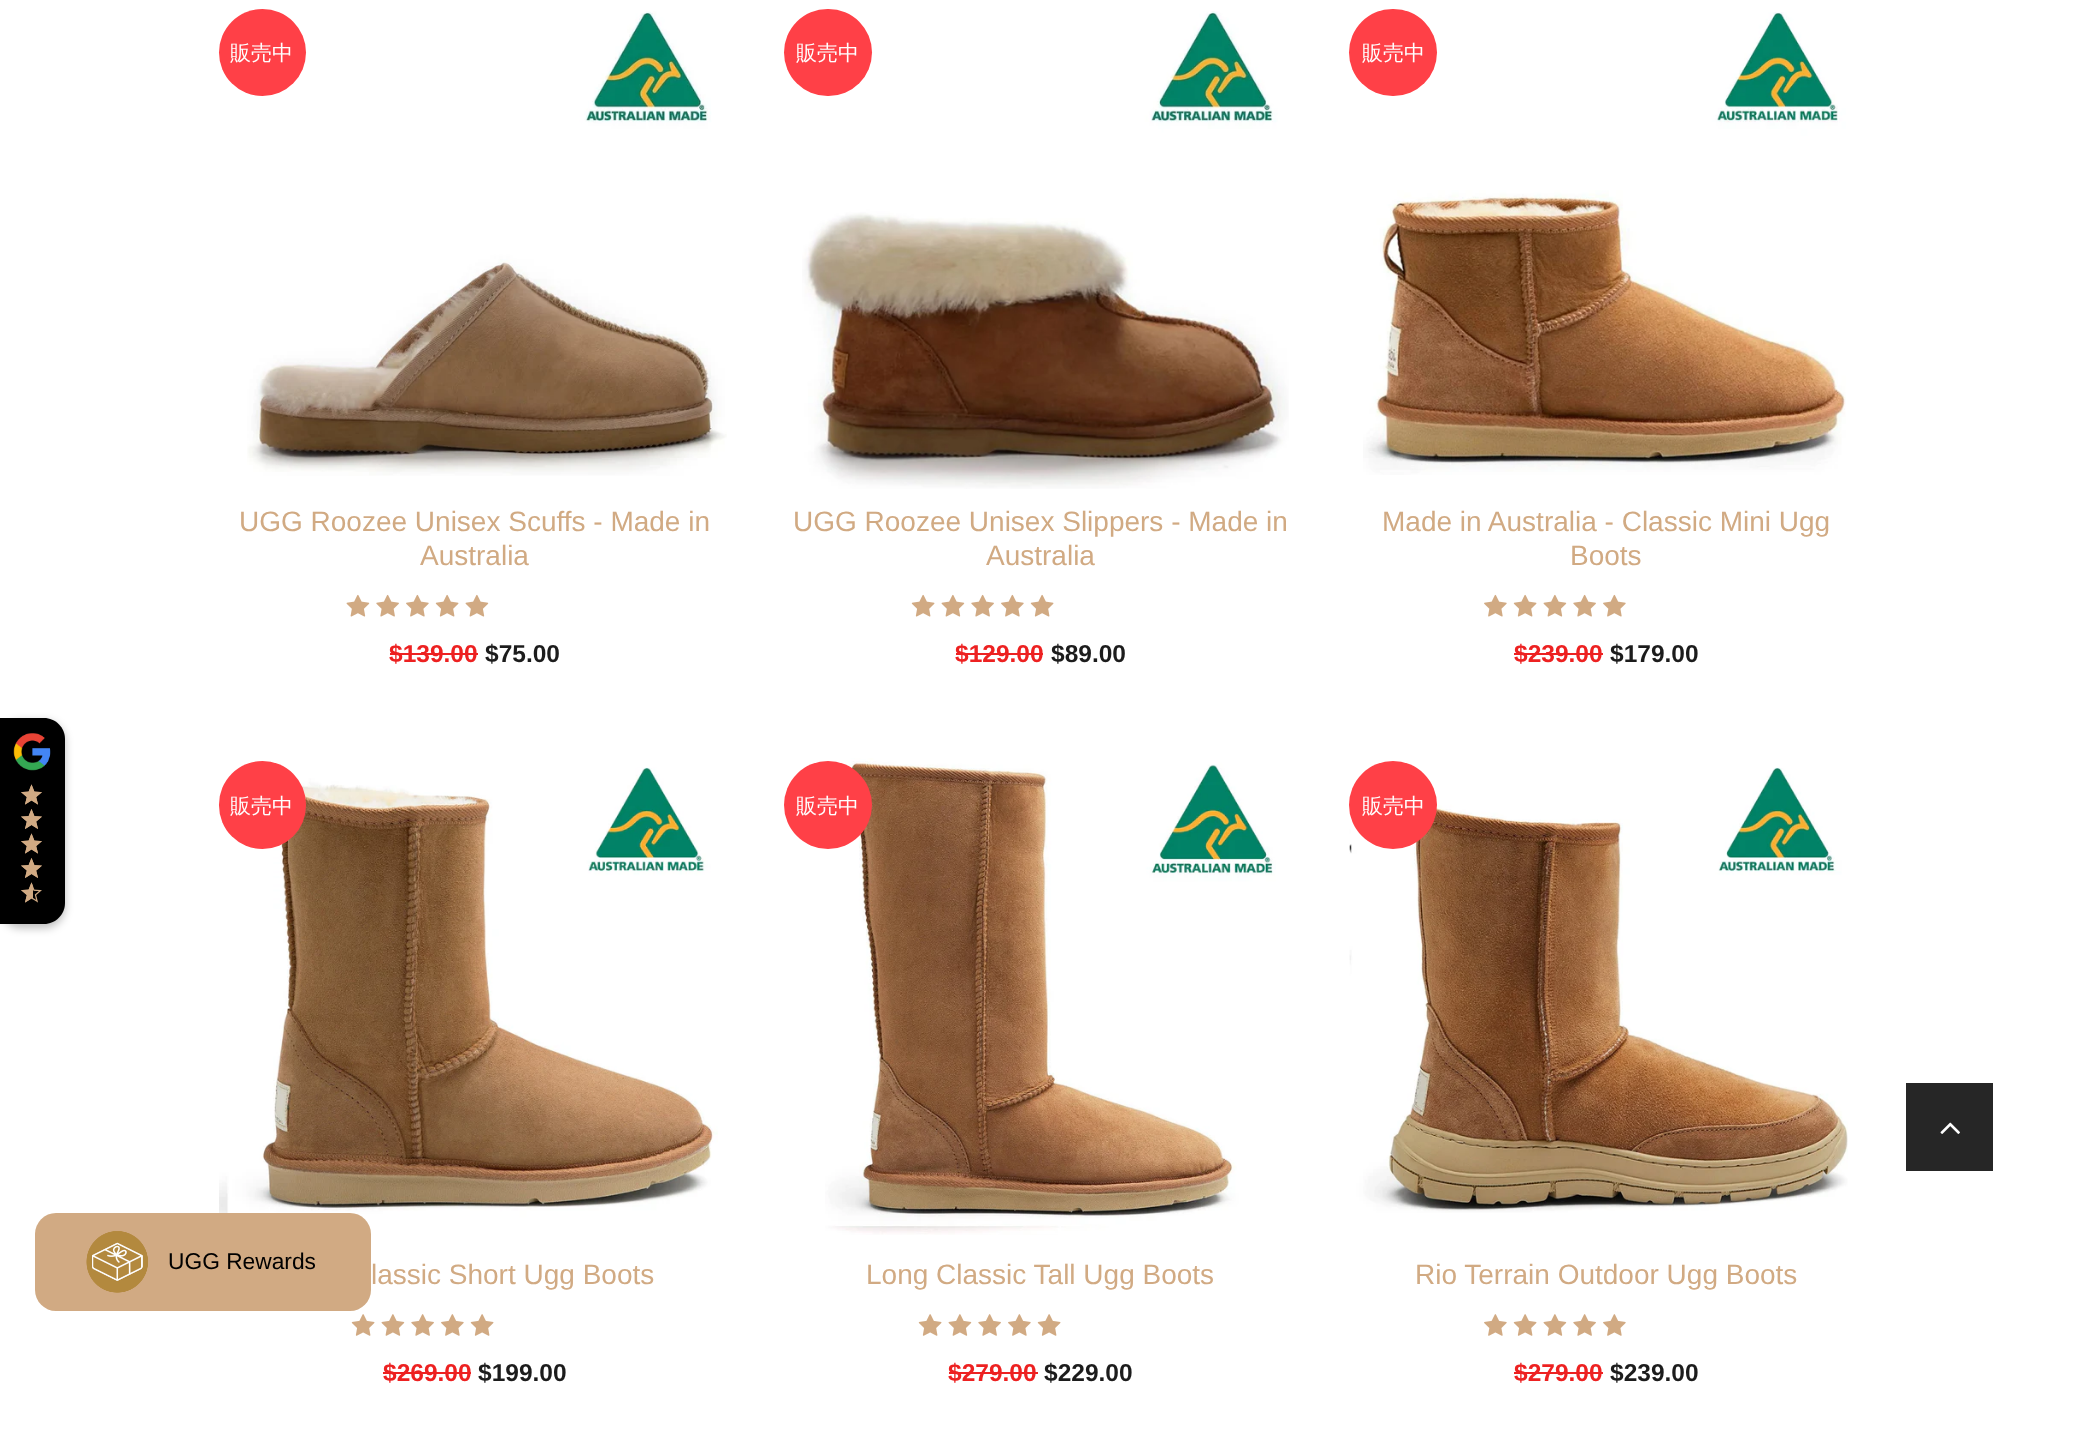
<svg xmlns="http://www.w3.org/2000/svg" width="2080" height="1433">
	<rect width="100%" height="100%" fill="#FFFFFF" />
	<rect x="0" y="721" width="65" height="207" rx="21" fill="#000000" fill-opacity="0.26" filter="blur(4.5px)" />
	<path d="M0 718H44C55.5 718 65 727.5 65 739V903C65 914.5 55.5 924 44 924H0Z" fill="#000000" />
	<image x="13" y="733" width="38" height="38" href="assets/img1.png" />
	<image x="21" y="784" width="21" height="21" href="assets/img2.png" />
	<image x="21" y="784" width="21" height="21" href="assets/img3.png" />
	<image x="21" y="809" width="21" height="20" href="assets/img4.png" />
	<image x="21" y="809" width="21" height="20" href="assets/img5.png" />
	<image x="21" y="833" width="21" height="21" href="assets/img2.png" />
	<image x="21" y="833" width="21" height="21" href="assets/img3.png" />
	<image x="21" y="858" width="21" height="20" href="assets/img4.png" />
	<image x="21" y="858" width="21" height="20" href="assets/img5.png" />
	<image x="21" y="882" width="21" height="21" href="assets/img2.png" />
	<image x="21" y="882" width="12" height="21" href="assets/img6.png" />
	<image x="247" y="11" width="480" height="465" href="assets/img7.png" />
	<circle cx="262.5" cy="52.5" r="43.5" fill="#FF4047" />
	<text x="230" y="60" font-family="WenQuanYi Zen Hei" font-size="21" font-weight="500" fill="#FFFFFF">販売中</text>
	<g font-family="Liberation Sans" font-size="28" fill="#D1AA83">
		<text x="239" y="531">UGG Roozee Unisex Scuffs - Made in</text>
		<text x="420" y="565">Australia</text>
	</g>
	<image x="346" y="594" width="24" height="23" href="assets/img8.png" />
	<image x="376" y="594" width="23" height="23" href="assets/img9.png" />
	<image x="406" y="594" width="23" height="23" href="assets/img10.png" />
	<image x="435" y="594" width="24" height="23" href="assets/img11.png" />
	<image x="465" y="594" width="24" height="23" href="assets/img8.png" />
	<text x="389" y="662" font-family="Liberation Sans" font-size="24.5" font-weight="700" fill="#ED2121">$139.00</text>
	<rect x="390" y="653" width="88" height="2" fill="#ED2121" />
	<text x="485" y="662" font-family="Liberation Sans" font-size="24.5" font-weight="700" fill="#1C1C1C">$75.00</text>
	<image x="802" y="11" width="487" height="478" href="assets/img12.png" />
	<rect x="784" y="9" width="88" height="87" rx="43.5" fill="#FF4047" />
	<text x="796" y="60" font-family="WenQuanYi Zen Hei" font-size="21" font-weight="500" fill="#FFFFFF">販売中</text>
	<g font-family="Liberation Sans" font-size="28" fill="#D1AA83">
		<text x="793" y="531">UGG Roozee Unisex Slippers - Made in</text>
		<text x="986" y="565">Australia</text>
	</g>
	<image x="911" y="594" width="24" height="23" href="assets/img11.png" />
	<image x="941" y="594" width="24" height="23" href="assets/img8.png" />
	<image x="971" y="594" width="23" height="23" href="assets/img9.png" />
	<image x="1001" y="594" width="23" height="23" href="assets/img10.png" />
	<image x="1030" y="594" width="24" height="23" href="assets/img11.png" />
	<text x="955" y="662" font-family="Liberation Sans" font-size="24.5" font-weight="700" fill="#ED2121">$129.00</text>
	<rect x="956" y="653" width="87" height="2" fill="#ED2121" />
	<text x="1051" y="662" font-family="Liberation Sans" font-size="24.5" font-weight="700" fill="#1C1C1C">$89.00</text>
	<image x="1363" y="12" width="483" height="463" href="assets/img13.png" />
	<rect x="1349" y="9" width="88" height="87" rx="43.5" fill="#FF4047" />
	<text x="1362" y="60" font-family="WenQuanYi Zen Hei" font-size="21" font-weight="500" fill="#FFFFFF">販売中</text>
	<g font-family="Liberation Sans" font-size="28" fill="#D1AA83">
		<text x="1382" y="531">Made in Australia - Classic Mini Ugg</text>
		<text x="1570" y="565">Boots</text>
	</g>
	<image x="1484" y="594" width="23" height="23" href="assets/img10.png" />
	<image x="1513" y="594" width="24" height="23" href="assets/img11.png" />
	<image x="1543" y="594" width="24" height="23" href="assets/img8.png" />
	<image x="1573" y="594" width="23" height="23" href="assets/img9.png" />
	<image x="1603" y="594" width="23" height="23" href="assets/img10.png" />
	<text x="1514" y="662" font-family="Liberation Sans" font-size="24.5" font-weight="700" fill="#ED2121">$239.00</text>
	<rect x="1514" y="653" width="89" height="2" fill="#ED2121" />
	<text x="1610" y="662" font-family="Liberation Sans" font-size="24.5" font-weight="700" fill="#1C1C1C">$179.00</text>
	<image x="219" y="767" width="499" height="457" href="assets/img14.png" />
	<rect x="219" y="761" width="87" height="88" rx="43.5" fill="#FF4047" />
	<text x="230" y="813" font-family="WenQuanYi Zen Hei" font-size="21" font-weight="500" fill="#FFFFFF">販売中</text>
	<text x="371" y="1284" font-family="Liberation Sans" font-size="28" fill="#D1AA83">lassic Short Ugg Boots</text>
	<image x="351" y="1314" width="24" height="22" href="assets/img15.png" />
	<image x="381" y="1314" width="24" height="22" href="assets/img16.png" />
	<image x="411" y="1314" width="23" height="22" href="assets/img17.png" />
	<image x="441" y="1314" width="23" height="22" href="assets/img18.png" />
	<image x="470" y="1314" width="24" height="22" href="assets/img15.png" />
	<text x="383" y="1381" font-family="Liberation Sans" font-size="24.5" font-weight="700" fill="#ED2121">$269.00</text>
	<rect x="383" y="1372" width="88" height="2" fill="#ED2121" />
	<text x="478" y="1381" font-family="Liberation Sans" font-size="24.5" font-weight="700" fill="#1C1C1C">$199.00</text>
	<image x="825" y="758" width="451" height="477" href="assets/img19.png" />
	<circle cx="828" cy="805" r="44" fill="#FF4047" />
	<text x="796" y="813" font-family="WenQuanYi Zen Hei" font-size="21" font-weight="500" fill="#FFFFFF">販売中</text>
	<text x="866" y="1284" font-family="Liberation Sans" font-size="28" fill="#D1AA83">Long Classic Tall Ugg Boots</text>
	<image x="918" y="1314" width="24" height="22" href="assets/img15.png" />
	<image x="948" y="1314" width="24" height="22" href="assets/img16.png" />
	<image x="978" y="1314" width="23" height="22" href="assets/img17.png" />
	<image x="1008" y="1314" width="23" height="22" href="assets/img18.png" />
	<image x="1037" y="1314" width="24" height="22" href="assets/img15.png" />
	<text x="948" y="1381" font-family="Liberation Sans" font-size="24.5" font-weight="700" fill="#ED2121">$279.00</text>
	<rect x="949" y="1372" width="89" height="2" fill="#ED2121" />
	<text x="1044" y="1381" font-family="Liberation Sans" font-size="24.5" font-weight="700" fill="#1C1C1C">$229.00</text>
	<image x="1349" y="767" width="499" height="446" href="assets/img20.png" />
	<circle cx="1393" cy="805" r="44" fill="#FF4047" />
	<text x="1362" y="813" font-family="WenQuanYi Zen Hei" font-size="21" font-weight="500" fill="#FFFFFF">販売中</text>
	<text x="1415" y="1284" font-family="Liberation Sans" font-size="28" fill="#D1AA83">Rio Terrain Outdoor Ugg Boots</text>
	<image x="1484" y="1314" width="23" height="22" href="assets/img18.png" />
	<image x="1513" y="1314" width="24" height="22" href="assets/img15.png" />
	<image x="1543" y="1314" width="24" height="22" href="assets/img16.png" />
	<image x="1573" y="1314" width="23" height="22" href="assets/img17.png" />
	<image x="1603" y="1314" width="23" height="22" href="assets/img18.png" />
	<text x="1514" y="1381" font-family="Liberation Sans" font-size="24.5" font-weight="700" fill="#ED2121">$279.00</text>
	<rect x="1514" y="1372" width="89" height="2" fill="#ED2121" />
	<text x="1610" y="1381" font-family="Liberation Sans" font-size="24.5" font-weight="700" fill="#1C1C1C">$239.00</text>
	<rect x="1906" y="1083" width="87" height="88" fill="#262626" />
	<image x="1940" y="1122" width="20" height="12" href="assets/img21.png" />
	<rect x="35" y="1213" width="336" height="98" rx="21" fill="#D1AA83" />
	<image x="86" y="1231" width="62" height="62" href="assets/img22.png" />
	<text x="168" y="1269" font-family="Liberation Sans" font-size="22.75" fill="#000000">UGG Rewards</text>
</svg>
